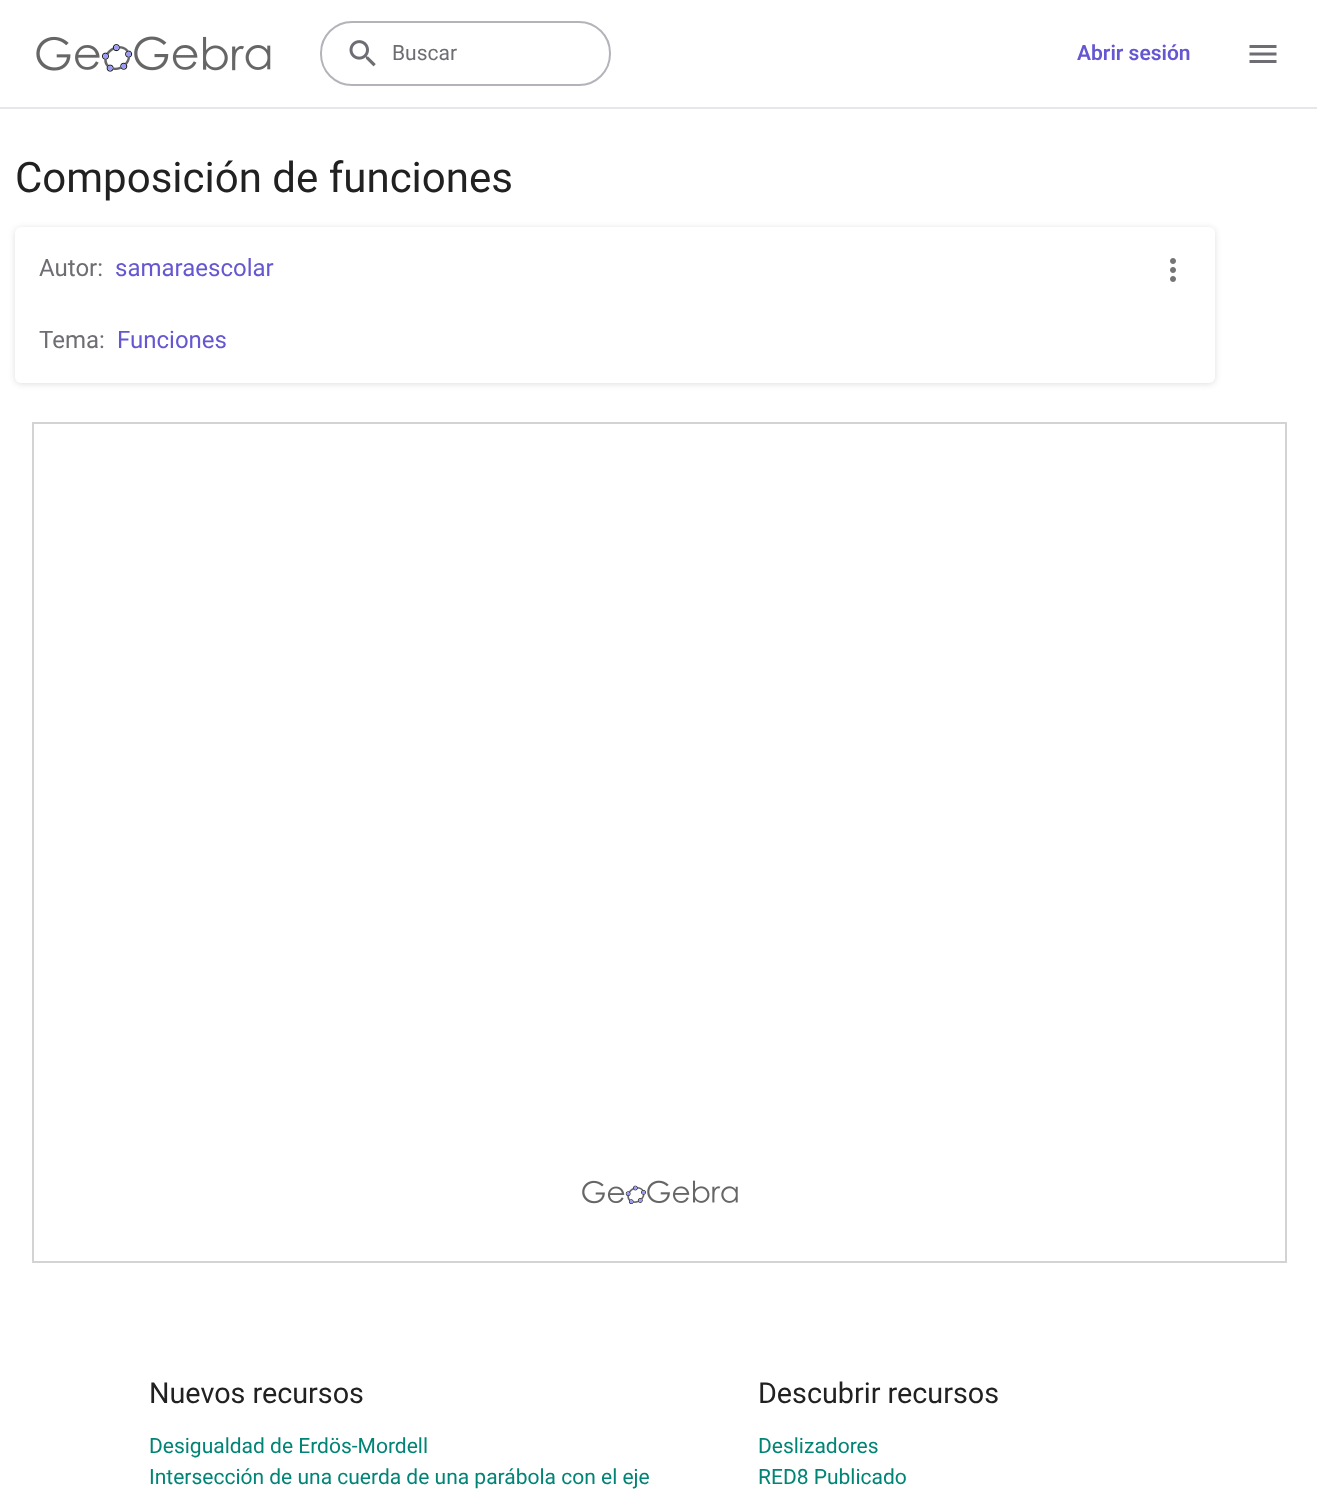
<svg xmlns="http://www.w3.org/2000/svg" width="1317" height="1502">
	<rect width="100%" height="100%" fill="#FFFFFF" />
	<rect x="0" y="107" width="1317" height="2" fill="#E6E6EB" />
	<image x="36" y="36" width="235" height="36" href="assets/img1.png" />
	<rect x="321" y="22" width="289" height="63" rx="31" fill="none" stroke="#B4B3BA" stroke-width="2" />
	<image x="349" y="40" width="27" height="27" href="assets/img2.png" />
	<text x="392" y="60" font-family="Roboto" font-size="21" fill="#6E6D73">Buscar</text>
	<text x="1077" y="60" font-family="Roboto" font-size="21" font-weight="600" fill="#6557D2">Abrir sesión</text>
	<image x="1249" y="45" width="28" height="18" href="assets/img3.png" />
	<text x="15" y="192" font-family="Roboto" font-size="42" fill="#212121">Composición de funciones</text>
	<rect x="15" y="228" width="1200" height="156" rx="6" fill="#1C1C1F" fill-opacity="0.14" filter="blur(3px)" />
	<rect x="15" y="227" width="1200" height="156" rx="6" fill="#FFFFFF" />
	<text x="39" y="276" font-family="Roboto" font-size="24" fill="#6E6D73">Autor:</text>
	<text x="115" y="276" font-family="Roboto" font-size="24" fill="#6557D2">samaraescolar</text>
	<text x="39" y="348" font-family="Roboto" font-size="24" fill="#6E6D73">Tema:</text>
	<text x="117" y="348" font-family="Roboto" font-size="24" fill="#6557D2">Funciones</text>
	<image x="1170" y="258" width="6" height="24" href="assets/img4.png" />
	<image x="582" y="1180" width="156" height="24" href="assets/img5.png" />
	<rect x="33" y="423" width="1253" height="839" fill="none" stroke="#D3D3D3" stroke-width="2" />
	<text x="149" y="1403" font-family="Roboto" font-size="28.75" fill="#212121">Nuevos recursos</text>
	<g font-family="Roboto" font-size="21" fill="#008475">
		<text x="149" y="1453">Desigualdad de Erdös-Mordell</text>
		<text x="149" y="1484">Intersección de una cuerda de una parábola con el eje</text>
	</g>
	<text x="758" y="1403" font-family="Roboto" font-size="28.75" fill="#212121">Descubrir recursos</text>
	<g font-family="Roboto" font-size="21" fill="#008475">
		<text x="758" y="1453">Deslizadores</text>
		<text x="758" y="1484">RED8 Publicado</text>
	</g>
</svg>
